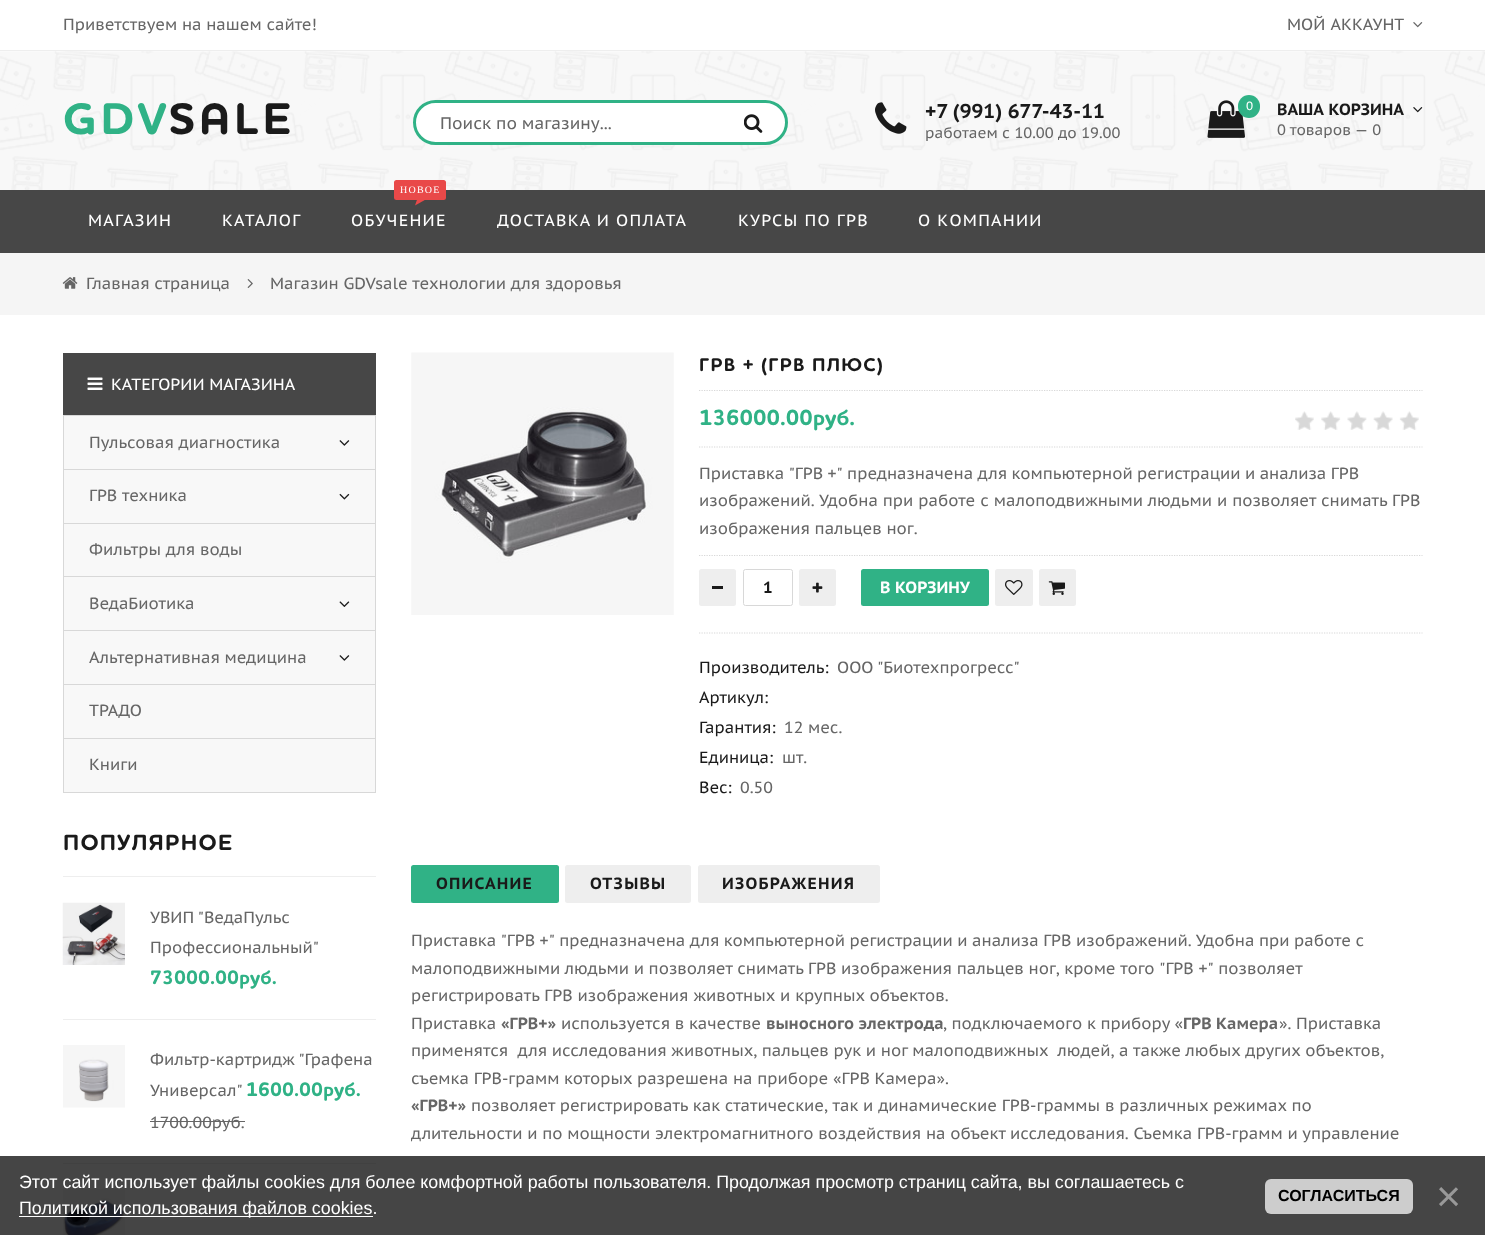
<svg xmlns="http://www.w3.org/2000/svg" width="1485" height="1235">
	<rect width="100%" height="100%" fill="#FFFFFF" />
	<rect x="0" y="50" width="1485" height="1" fill="#EEEEEE" />
	<g font-family="PT Sans Caption" font-size="16.25" fill="#666666">
		<text x="63" y="30">Приветствуем на нашем сайте!</text>
		<text x="1287" y="30" word-spacing="1">МОЙ АККАУНТ</text>
	</g>
	<image x="1413" y="22" width="10" height="6" href="assets/img1.png" />
	<image x="0" y="51" width="1485" height="139" href="assets/img2.png" />
	<text x="63" y="134" font-family="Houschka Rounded" font-size="45" font-weight="700" letter-spacing="4" fill="#30B286">GDV</text>
	<text x="169" y="134" font-family="Houschka Rounded" font-size="45" font-weight="700" letter-spacing="4" fill="#1A1A1A">SALE</text>
	<rect x="414.5" y="101.5" width="372" height="42" rx="21" fill="#FFFFFF" stroke="#30B286" stroke-width="3" />
	<text x="440" y="129" font-family="PT Sans Caption" font-size="16.75" fill="#666666">Поиск по магазину...</text>
	<image x="744" y="114" width="19" height="19" href="assets/img3.png" />
	<image x="875" y="102" width="32" height="32" href="assets/img4.png" />
	<text x="925" y="118" font-family="PT Sans Caption" font-size="20" font-weight="700" fill="#1A1A1A">+7 (991) 677-43-11</text>
	<text x="925" y="138" font-family="PT Sans Caption" font-size="15" fill="#666666">работаем с 10.00 до 19.00</text>
	<image x="1207" y="100" width="38" height="38" href="assets/img5.png" />
	<rect x="1238" y="95" width="22" height="23" rx="11" fill="#30B286" />
	<text x="1246" y="110" font-family="PT Sans Caption" font-size="12" fill="#FFFFFF">0</text>
	<text x="1277" y="115" font-family="PT Sans Caption" font-size="16.25" font-weight="700" fill="#1A1A1A">ВАША КОРЗИНА</text>
	<image x="1413" y="107" width="10" height="6" href="assets/img6.png" />
	<text x="1277" y="135" word-spacing="-0.5" font-family="PT Sans Caption" font-size="15" fill="#666666">0 товаров — 0</text>
	<rect x="0" y="190" width="1485" height="63" fill="#474747" />
	<g font-family="PT Sans Caption" font-size="16.25" letter-spacing="1.25" fill="#FFFFFF">
		<text x="88" y="226">МАГАЗИН</text>
		<text x="222" y="226">КАТАЛОГ</text>
	</g>
	<path d="M436 184.5L432 196L415 205.5L419 194Z" fill="#E94949" />
	<rect x="394" y="180" width="52" height="20" rx="2.5" fill="#E94949" />
	<text x="400" y="193" font-family="Liberation Serif" font-size="10" letter-spacing="1.25" fill="#FFFFFF">НОВОЕ</text>
	<g font-family="PT Sans Caption" font-size="16.25" letter-spacing="1.25" fill="#FFFFFF">
		<text x="351" y="226">ОБУЧЕНИЕ</text>
		<text x="497" y="226">ДОСТАВКА И ОПЛАТА</text>
		<text x="738" y="226">КУРСЫ ПО ГРВ</text>
		<text x="918" y="226">О КОМПАНИИ</text>
	</g>
	<rect x="0" y="253" width="1485" height="62" fill="#F5F5F5" />
	<image x="62" y="277" width="16" height="12" href="assets/img7.png" />
	<text x="86" y="289" font-family="PT Sans Caption" font-size="16.25" fill="#666666">Главная страница</text>
	<image x="247" y="279" width="6" height="9" href="assets/img8.png" />
	<text x="270" y="289" font-family="PT Sans Caption" font-size="16.25" fill="#666666">Магазин GDVsale технологии для здоровья</text>
	<rect x="63" y="353" width="313" height="62" fill="#474747" />
	<image x="87" y="377" width="16" height="13" href="assets/img9.png" />
	<text x="111" y="390" font-family="PT Sans Caption" font-size="16.25" fill="#FFFFFF">КАТЕГОРИИ МАГАЗИНА</text>
	<rect x="63.5" y="415.5" width="312" height="377" fill="#F8F8F8" stroke="#D8D8D8" />
	<rect x="64" y="469" width="311" height="1" fill="#D8D8D8" />
	<text x="89" y="448" font-family="PT Sans Caption" font-size="16.25" fill="#666666">Пульсовая диагностика</text>
	<image x="339" y="440" width="11" height="6" href="assets/img10.png" />
	<rect x="64" y="523" width="311" height="1" fill="#D8D8D8" />
	<text x="89" y="501" font-family="PT Sans Caption" font-size="16.25" fill="#666666">ГРВ техника</text>
	<image x="339" y="493" width="11" height="7" href="assets/img11.png" />
	<rect x="64" y="576" width="311" height="1" fill="#D8D8D8" />
	<text x="89" y="555" font-family="PT Sans Caption" font-size="16.25" fill="#666666">Фильтры для воды</text>
	<rect x="64" y="630" width="311" height="1" fill="#D8D8D8" />
	<text x="89" y="609" font-family="PT Sans Caption" font-size="16.25" fill="#666666">ВедаБиотика</text>
	<image x="339" y="601" width="11" height="6" href="assets/img12.png" />
	<rect x="64" y="684" width="311" height="1" fill="#D8D8D8" />
	<text x="89" y="663" font-family="PT Sans Caption" font-size="16.25" fill="#666666">Альтернативная медицина</text>
	<image x="339" y="655" width="11" height="6" href="assets/img10.png" />
	<rect x="64" y="738" width="311" height="1" fill="#D8D8D8" />
	<g font-family="PT Sans Caption" font-size="16.25" fill="#666666">
		<text x="89" y="716">ТРАДО</text>
		<text x="89" y="770">Книги</text>
	</g>
	<rect x="63" y="876" width="313" height="1" fill="#EEEEEE" />
	<text x="63" y="850" font-family="Houschka Rounded" font-size="22.5" font-weight="700" letter-spacing="1.25" fill="#1A1A1A">ПОПУЛЯРНОЕ</text>
	<rect x="63" y="1019" width="313" height="1" fill="#EEEEEE" />
	<image x="62" y="902" width="63" height="63" href="assets/img13.png" />
	<g font-family="PT Sans Caption" font-size="16.25" fill="#666666">
		<text x="150" y="923" word-spacing="-1">УВИП "ВедаПульс</text>
		<text x="150" y="953">Профессиональный"</text>
	</g>
	<text x="150" y="984" font-family="Houschka Rounded" font-size="20" font-weight="700" fill="#30B286">73000.00руб.</text>
	<rect x="63" y="1163" width="313" height="1" fill="#EEEEEE" />
	<image x="63" y="1045" width="62" height="63" href="assets/img14.png" />
	<g font-family="PT Sans Caption" font-size="16.25" fill="#666666">
		<text x="150" y="1065" word-spacing="-1">Фильтр-картридж "Графена</text>
		<text x="150" y="1096">Универсал"</text>
	</g>
	<text x="246" y="1096" font-family="Houschka Rounded" font-size="20" font-weight="700" fill="#30B286">1600.00руб.</text>
	<text x="150" y="1128" font-family="PT Sans Caption" font-size="16.25" fill="#666666">1700.00руб.</text>
	<rect x="150" y="1121" width="95" height="1" fill="#666666" />
	<image x="63" y="1189" width="62" height="46" href="assets/img15.png" />
	<image x="411" y="352" width="263" height="263" href="assets/img16.png" />
	<path d="M699 390.5H1422.5" fill="none" stroke="#D8D8D8" stroke-width="1.2" stroke-dasharray="1.25 1.25" />
	<text x="699" y="371" font-family="Houschka Rounded" font-size="18.75" font-weight="700" letter-spacing="1.25" fill="#1A1A1A">ГРВ + (ГРВ ПЛЮС)</text>
	<path d="M699 447H1422.5" fill="none" stroke="#D8D8D8" stroke-width="1.2" stroke-dasharray="1.25 1.25" />
	<text x="699" y="425" font-family="Houschka Rounded" font-size="22.5" font-weight="700" fill="#30B286">136000.00руб.</text>
	<image x="1295" y="411" width="124" height="19" href="assets/img17.png" />
	<path d="M699 555.5H1422.5" fill="none" stroke="#D8D8D8" stroke-width="1.2" stroke-dasharray="1.25 1.25" />
	<g font-family="PT Sans Caption" font-size="16.25" fill="#666666">
		<text x="699" y="479" word-spacing="-0.25">Приставка "ГРВ +" предназначена для компьютерной регистрации и анализа ГРВ</text>
		<text x="699" y="506" word-spacing="0.25">изображений. Удобна при работе с малоподвижными людьми и позволяет снимать ГРВ</text>
		<text x="699" y="534">изображения пальцев ног.</text>
	</g>
	<path d="M699 633H1422.5" fill="none" stroke="#D8D8D8" stroke-width="1.2" stroke-dasharray="1.25 1.25" />
	<rect x="699" y="569" width="37" height="37" rx="2.5" fill="#EEEEEE" />
	<rect x="712" y="586" width="11" height="3" fill="#1A1A1A" />
	<rect x="743.5" y="569.5" width="49" height="36" rx="2" fill="none" stroke="#D8D8D8" />
	<text x="763" y="593" font-family="PT Sans Caption" font-size="16.25" font-weight="700" fill="#1A1A1A">1</text>
	<rect x="799" y="569" width="37" height="37" rx="2.5" fill="#EEEEEE" />
	<image x="812" y="582" width="11" height="11" href="assets/img18.png" />
	<rect x="861" y="569" width="128" height="37" rx="2.5" fill="#30B286" />
	<text x="880" y="593" font-family="PT Sans Caption" font-size="16.25" font-weight="700" fill="#FFFFFF">В КОРЗИНУ</text>
	<rect x="995" y="569" width="38" height="37" rx="2.5" fill="#EEEEEE" />
	<image x="1005" y="580" width="18" height="15" href="assets/img19.png" />
	<rect x="1039" y="569" width="37" height="37" rx="2.5" fill="#EEEEEE" />
	<image x="1048" y="581" width="17" height="14" href="assets/img20.png" />
	<text x="699" y="673" font-family="PT Sans Caption" font-size="16.25" fill="#1A1A1A">Производитель:</text>
	<text x="837" y="673" word-spacing="-1" font-family="PT Sans Caption" font-size="16.25" fill="#666666">ООО "Биотехпрогресс"</text>
	<g font-family="PT Sans Caption" font-size="16.25" fill="#1A1A1A">
		<text x="699" y="703">Артикул:</text>
		<text x="699" y="733">Гарантия:</text>
	</g>
	<text x="784" y="733" font-family="PT Sans Caption" font-size="16.25" fill="#666666">12 мес.</text>
	<text x="699" y="763" font-family="PT Sans Caption" font-size="16.25" fill="#1A1A1A">Единица:</text>
	<text x="782" y="763" font-family="PT Sans Caption" font-size="16.25" fill="#666666">шт.</text>
	<text x="699" y="793" font-family="PT Sans Caption" font-size="16.25" fill="#1A1A1A">Вес:</text>
	<text x="740" y="793" font-family="PT Sans Caption" font-size="16.25" fill="#666666">0.50</text>
	<rect x="411" y="865" width="148" height="38" rx="2.5" fill="#30B286" />
	<text x="436" y="889" font-family="PT Sans Caption" font-size="16.25" font-weight="700" letter-spacing="1.25" fill="#1A1A1A">ОПИСАНИЕ</text>
	<rect x="565" y="865" width="126" height="38" rx="2.5" fill="#EEEEEE" />
	<text x="590" y="889" font-family="PT Sans Caption" font-size="16.25" font-weight="700" letter-spacing="1.25" fill="#1A1A1A">ОТЗЫВЫ</text>
	<rect x="698" y="865" width="182" height="38" rx="2.5" fill="#EEEEEE" />
	<text x="722" y="889" font-family="PT Sans Caption" font-size="16.25" font-weight="700" letter-spacing="1.25" fill="#1A1A1A">ИЗОБРАЖЕНИЯ</text>
	<g font-family="PT Sans Caption" font-size="16.25" fill="#666666">
		<text x="411" y="946" word-spacing="-0.2">Приставка "ГРВ +" предназначена для компьютерной регистрации и анализа ГРВ изображений. Удобна при работе с</text>
		<text x="411" y="974">малоподвижными людьми и позволяет снимать ГРВ изображения пальцев ног, кроме того "ГРВ +" позволяет</text>
		<text x="411" y="1001" word-spacing="0.25">регистрировать ГРВ изображения животных и крупных объектов.</text>
		<text x="411" y="1029">Приставка</text>
	</g>
	<text x="501" y="1029" font-family="PT Sans Caption" font-size="16.25" font-weight="700" fill="#666666">«ГРВ+»</text>
	<text x="561" y="1029" font-family="PT Sans Caption" font-size="16.25" fill="#666666">используется в качестве</text>
	<text x="766" y="1029" font-family="PT Sans Caption" font-size="16.25" font-weight="700" fill="#666666">выносного электрода</text>
	<text x="943" y="1029" font-family="PT Sans Caption" font-size="16.25" fill="#666666">, подключаемого к прибору «</text>
	<text x="1183" y="1029" font-family="PT Sans Caption" font-size="16.25" font-weight="700" fill="#666666">ГРВ Камера</text>
	<g font-family="PT Sans Caption" font-size="16.25" fill="#666666">
		<text x="1279" y="1029">». Приставка</text>
		<text x="411" y="1056" xml:space="preserve">применятся  для исследования животных, пальцев рук и ног малоподвижных  людей, а также любых других объектов,</text>
		<text x="411" y="1084">съемка ГРВ-грамм которых разрешена на приборе «ГРВ Камера».</text>
	</g>
	<text x="411" y="1111" font-family="PT Sans Caption" font-size="16.25" font-weight="700" fill="#666666">«ГРВ+»</text>
	<g font-family="PT Sans Caption" font-size="16.25" fill="#666666">
		<text x="471" y="1111" word-spacing="0.1">позволяет регистрировать как статические, так и динамические ГРВ-граммы в различных режимах по</text>
		<text x="411" y="1139">длительности и по мощности электромагнитного воздействия на объект исследования. Съемка ГРВ-грамм и управление</text>
	</g>
	<rect x="0" y="1156" width="1485" height="79" fill="#000000" fill-opacity="0.73" />
	<text x="19" y="1188" font-family="Liberation Sans" font-size="17.88" fill="#FFFFFF">Этот сайт использует файлы cookies для более комфортной работы пользователя. Продолжая просмотр страниц сайта, вы соглашаетесь с</text>
	<rect x="19" y="1216" width="354" height="1" fill="#FFFFFF" />
	<text x="19" y="1214" font-family="Liberation Sans" font-size="17.88" fill="#FFFFFF">Политикой использования файлов cookies.</text>
	<rect x="1265" y="1179" width="148" height="35" rx="6" fill="#CDCDCD" />
	<text x="1278" y="1201" font-family="Liberation Sans" font-size="16" font-weight="700" fill="#000000">СОГЛАСИТЬСЯ</text>
	<text x="1436" y="1211" font-family="Liberation Sans" font-size="43" fill="#999999">×</text>
</svg>
